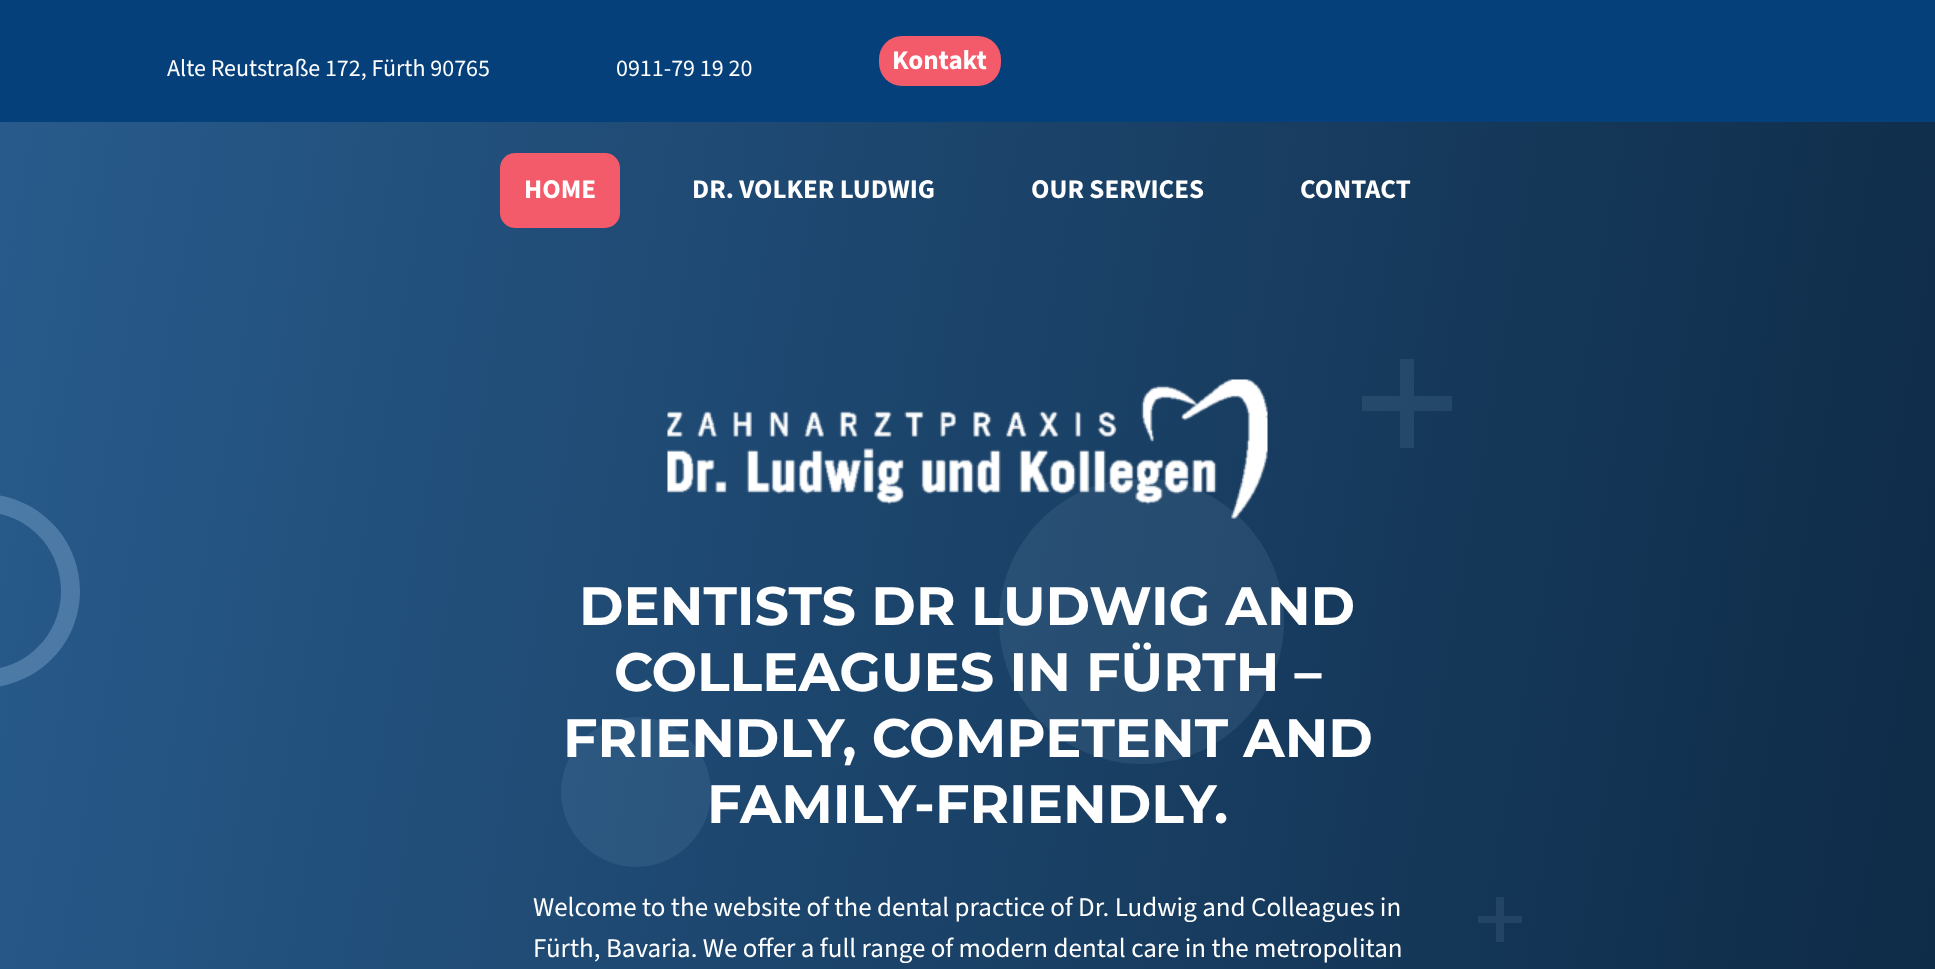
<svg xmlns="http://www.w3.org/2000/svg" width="1935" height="969">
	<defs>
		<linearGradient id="g1" gradientUnits="userSpaceOnUse" x1="-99" y1="559" x2="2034" y2="935"><stop offset="0" stop-color="#285B8C" /><stop offset="1" stop-color="#0D2944" /></linearGradient>
		<clipPath id="clip1"><rect x="1362" y="359" width="90" height="90" /></clipPath>
		<clipPath id="clip2"><rect x="999" y="479" width="285" height="285" /></clipPath>
	</defs>
	<rect width="100%" height="100%" fill="#FFFFFF" />
	<rect x="0" y="122" width="1935" height="847" fill="url(#g1)" />
	<rect x="0" y="0" width="1935" height="122" fill="#05407B" />
	<g font-family="'Source Sans 3'" font-size="24" fill="#FFFFFF">
		<text x="167" y="76">Alte Reutstraße 172, Fürth 90765</text>
		<text x="616" y="76">0911-79 19 20</text>
	</g>
	<rect x="879" y="36" width="122" height="50" rx="23" fill="#F35A6A" />
	<text x="892" y="69" font-family="'Source Sans 3'" font-size="27" font-weight="700" fill="#FFFFFF">Kontakt</text>
	<rect x="500" y="153" width="120" height="75" rx="15" fill="#F35A6A" />
	<g font-family="'Source Sans 3'" font-size="27" font-weight="700" fill="#FFFFFF">
		<text x="524" y="198">HOME</text>
		<text x="692" y="198">DR. VOLKER LUDWIG</text>
		<text x="1031" y="198">OUR SERVICES</text>
		<text x="1300" y="198">CONTACT</text>
	</g>
	<g clip-path="url(#clip1)">
		<path d="M1452 396V411H1414V448H1400V411H1362V396H1400V358H1414V396Z" fill="#A8CEF0" fill-opacity="0.1" />
	</g>
	<path d="M80 591C80 645 36 688-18 688C-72 688-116 645-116 591C-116 537-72 494-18 494C36 494 80 537 80 591ZM-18 512C-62 512-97 547-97 591C-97 635-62 670-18 670C26 670 61 635 61 591C61 547 26 512-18 512Z" fill="#A8CEF0" fill-opacity="0.29" />
	<g clip-path="url(#clip2)">
		<path d="M1284 621C1284 700 1220 764 1142 764C1063 764 999 700 999 621C999 542 1063 478 1142 478C1220 478 1284 542 1284 621Z" fill="#A8CEF0" fill-opacity="0.1" />
	</g>
	<image x="667" y="379" width="601" height="140" href="assets/img1.png" />
	<g font-family="Montserrat" font-size="54" font-weight="700" fill="#FFFFFF">
		<text x="579" y="625">DENTISTS DR LUDWIG AND</text>
		<text x="614" y="691">COLLEAGUES IN FÜRTH –</text>
	</g>
	<path d="M711 792C711 833 677 867 636 867C595 867 561 833 561 792C561 751 595 717 636 717C677 717 711 751 711 792Z" fill="#A8CEF0" fill-opacity="0.1" />
	<g font-family="Montserrat" font-size="54" font-weight="700" fill="#FFFFFF">
		<text x="563" y="757">FRIENDLY, COMPETENT AND</text>
		<text x="707" y="823">FAMILY-FRIENDLY.</text>
	</g>
	<g font-family="'Source Sans 3'" font-size="27" fill="#FFFFFF">
		<text x="533" y="916">Welcome to the website of the dental practice of Dr. Ludwig and Colleagues in</text>
		<text x="533" y="957">Fürth, Bavaria. We offer a full range of modern dental care in the metropolitan</text>
	</g>
	<path d="M1522 916V923H1504V942H1496V923H1478V916H1496V897H1504V916Z" fill="#234465" />
</svg>
